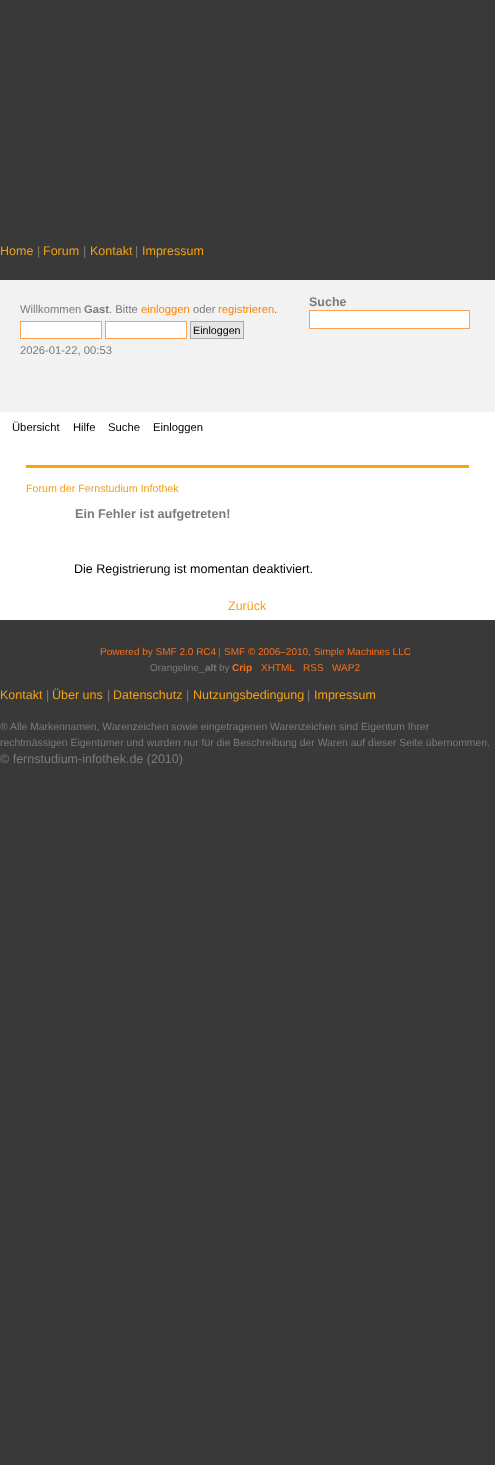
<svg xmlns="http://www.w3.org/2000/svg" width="495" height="1465">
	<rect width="100%" height="100%" fill="#39393A" />
	<text x="0" y="255" font-family="Liberation Sans" font-size="12.5" fill="#F0A118">Home</text>
	<text x="37" y="255" font-family="Liberation Sans" font-size="12.5" fill="#7B7B7B">|</text>
	<text x="43" y="255" font-family="Liberation Sans" font-size="12.5" fill="#F0A118">Forum</text>
	<text x="83" y="255" font-family="Liberation Sans" font-size="12.5" fill="#7B7B7B">|</text>
	<text x="90" y="255" font-family="Liberation Sans" font-size="12.5" fill="#F0A118">Kontakt</text>
	<text x="135" y="255" font-family="Liberation Sans" font-size="12.5" fill="#7B7B7B">|</text>
	<text x="142" y="255" font-family="Liberation Sans" font-size="12.5" fill="#F0A118">Impressum</text>
	<rect x="0" y="280" width="495" height="132" fill="#F2F2F2" />
	<text x="309" y="306" font-family="Liberation Sans" font-size="12.5" font-weight="700" fill="#7B7B7B">Suche</text>
	<rect x="309.5" y="310.5" width="160" height="18" fill="#FFFFFF" stroke="#FFA04D" />
	<text x="20" y="313" font-family="Liberation Sans" font-size="11.25" fill="#7B7B7B">Willkommen</text>
	<text x="84" y="313" font-family="Liberation Sans" font-size="11.25" font-weight="700" fill="#7B7B7B">Gast</text>
	<text x="109" y="313" font-family="Liberation Sans" font-size="11.25" fill="#7B7B7B">. Bitte</text>
	<text x="141" y="313" font-family="Liberation Sans" font-size="11.25" fill="#FF8300">einloggen</text>
	<text x="193" y="313" font-family="Liberation Sans" font-size="11.25" fill="#7B7B7B">oder</text>
	<text x="218" y="313" font-family="Liberation Sans" font-size="11.25" fill="#FF8300">registrieren</text>
	<text x="274" y="313" font-family="Liberation Sans" font-size="11.25" fill="#7B7B7B">.</text>
	<rect x="20.5" y="321.5" width="81" height="17" fill="#FFFFFF" stroke="#FFA04D" />
	<rect x="105.5" y="321.5" width="81" height="17" fill="#FFFFFF" stroke="#FFA04D" />
	<rect x="190.5" y="321.5" width="53" height="17" fill="#E6E6E6" stroke="#AAAAAA" />
	<text x="193" y="334" font-family="Liberation Sans" font-size="10.7" fill="#000000">Einloggen</text>
	<text x="20" y="354" font-family="Liberation Sans" font-size="11.25" fill="#7B7B7B">2026-01-22, 00:53</text>
	<rect x="0" y="412" width="495" height="208" fill="#FFFFFF" />
	<g font-family="Liberation Sans" font-size="11.25" fill="#000000">
		<text x="12" y="431">Übersicht</text>
		<text x="73" y="431">Hilfe</text>
		<text x="108" y="431">Suche</text>
		<text x="153" y="431">Einloggen</text>
	</g>
	<rect x="26" y="465" width="443" height="3" fill="#FFA500" />
	<text x="26" y="492" font-family="Liberation Sans" font-size="10.7" fill="#F0A118">Forum der Fernstudium Infothek</text>
	<text x="75" y="518" font-family="Liberation Sans" font-size="12.6" font-weight="700" fill="#7B7B7B">Ein Fehler ist aufgetreten!</text>
	<text x="74" y="573" font-family="Liberation Sans" font-size="12.5" fill="#000000">Die Registrierung ist momentan deaktiviert.</text>
	<text x="228" y="610" font-family="Liberation Sans" font-size="12.5" fill="#F0A118">Zurück</text>
	<text x="100" y="655" font-family="Liberation Sans" font-size="10" fill="#F5701B">Powered by SMF 2.0 RC4</text>
	<text x="218" y="655" font-family="Liberation Sans" font-size="10" fill="#7B7B7B">|</text>
	<text x="224" y="655" font-family="Liberation Sans" font-size="10" fill="#F5701B">SMF © 2006–2010, Simple Machines LLC</text>
	<text x="150" y="671" font-family="Liberation Sans" font-size="10" fill="#7B7B7B">Orangeline_</text>
	<text x="205" y="671" font-family="Liberation Sans" font-size="10" font-weight="700" fill="#7B7B7B">alt</text>
	<text x="219" y="671" font-family="Liberation Sans" font-size="10" fill="#7B7B7B">by</text>
	<text x="232" y="671" font-family="Liberation Sans" font-size="10" font-weight="700" fill="#F5701B">Crip</text>
	<g font-family="Liberation Sans" font-size="10" fill="#F5701B">
		<text x="261" y="671">XHTML</text>
		<text x="303" y="671">RSS</text>
		<text x="332" y="671">WAP2</text>
	</g>
	<text x="0" y="699" font-family="Liberation Sans" font-size="12.5" fill="#F0A118">Kontakt</text>
	<text x="46" y="699" font-family="Liberation Sans" font-size="12.5" fill="#7B7B7B">|</text>
	<text x="52" y="699" font-family="Liberation Sans" font-size="12.5" fill="#F0A118">Über uns</text>
	<text x="107" y="699" font-family="Liberation Sans" font-size="12.5" fill="#7B7B7B">|</text>
	<text x="113" y="699" font-family="Liberation Sans" font-size="12.5" fill="#F0A118">Datenschutz</text>
	<text x="186" y="699" font-family="Liberation Sans" font-size="12.5" fill="#7B7B7B">|</text>
	<text x="193" y="699" font-family="Liberation Sans" font-size="12.5" fill="#F0A118">Nutzungsbedingung</text>
	<text x="307" y="699" font-family="Liberation Sans" font-size="12.5" fill="#7B7B7B">|</text>
	<text x="314" y="699" font-family="Liberation Sans" font-size="12.5" fill="#F0A118">Impressum</text>
	<g font-family="Liberation Sans" font-size="10.4" fill="#7B7B7B">
		<text x="0" y="730">® Alle Markennamen, Warenzeichen sowie eingetragenen Warenzeichen sind Eigentum Ihrer</text>
		<text x="0" y="746">rechtmässigen Eigentümer und wurden nur für die Beschreibung der Waren auf dieser Seite übernommen.</text>
	</g>
	<text x="0" y="763" font-family="Liberation Sans" font-size="12.5" fill="#7B7B7B">© fernstudium-infothek.de (2010)</text>
</svg>
